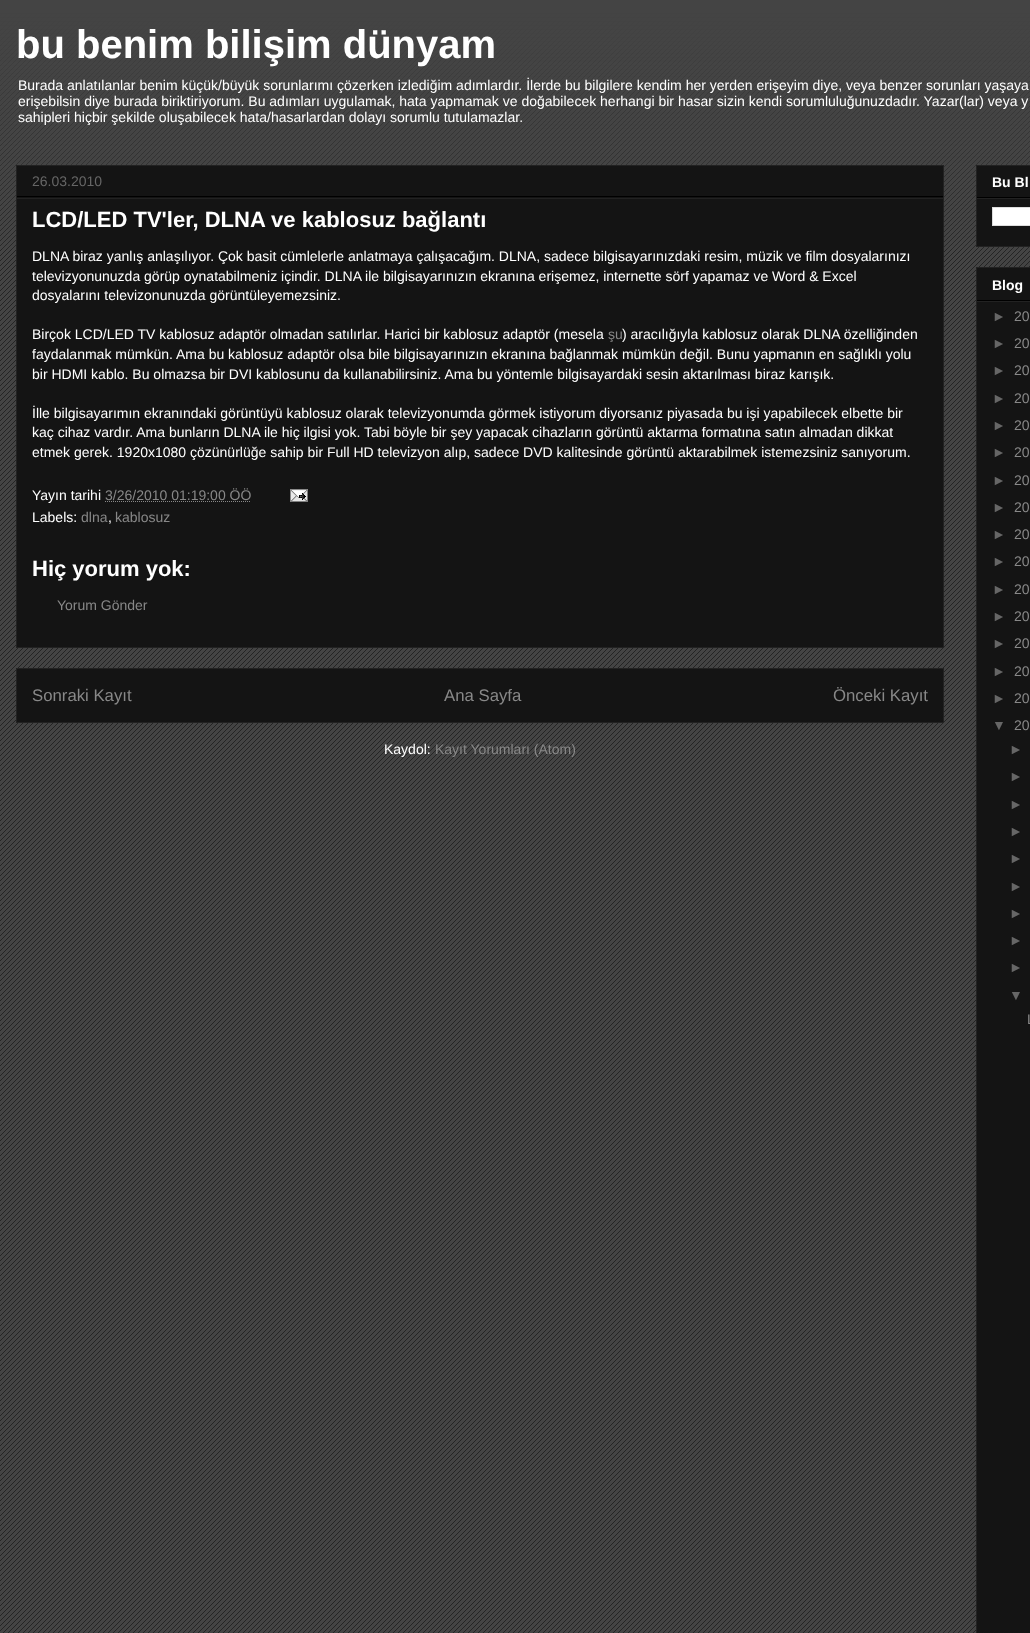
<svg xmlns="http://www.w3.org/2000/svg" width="1030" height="1633">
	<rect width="100%" height="100%" fill="#444444" />
	<image x="0" y="13" width="1030" height="1620" href="assets/img1.png" />
	<image x="0" y="0" width="1030" height="249" href="assets/img2.png" />
	<text x="16" y="58" font-family="Liberation Sans" font-size="40" font-weight="700" fill="#FFFFFF">bu benim bilişim dünyam</text>
	<g font-family="Liberation Sans" font-size="14" fill="#FFFFFF">
		<text x="18" y="90">Burada anlatılanlar benim küçük/büyük sorunlarımı çözerken izlediğim adımlardır. İlerde bu bilgilere kendim her yerden erişeyim diye, veya benzer sorunları yaşaya</text>
		<text x="18" y="106">erişebilsin diye burada biriktiriyorum. Bu adımları uygulamak, hata yapmamak ve doğabilecek herhangi bir hasar sizin kendi sorumluluğunuzdadır. Yazar(lar) veya y</text>
		<text x="18" y="122">sahipleri hiçbir şekilde oluşabilecek hata/hasarlardan dolayı sorumlu tutulamazlar.</text>
	</g>
	<rect x="16.5" y="165.5" width="927" height="482" fill="#141414" stroke="#222222" />
	<rect x="17" y="196" width="926" height="1" fill="#000000" />
	<text x="32" y="186" font-family="Liberation Sans" font-size="14" fill="#666666">26.03.2010</text>
	<rect x="17" y="198" width="926" height="1" fill="#222222" />
	<text x="32" y="227" font-family="Liberation Sans" font-size="22" font-weight="700" fill="#FFFFFF">LCD/LED TV'ler, DLNA ve kablosuz bağlantı</text>
	<g font-family="Liberation Sans" font-size="14" fill="#FFFFFF">
		<text x="32" y="261">DLNA biraz yanlış anlaşılıyor. Çok basit cümlelerle anlatmaya çalışacağım. DLNA, sadece bilgisayarınızdaki resim, müzik ve film dosyalarınızı</text>
		<text x="32" y="281">televizyonunuzda görüp oynatabilmeniz içindir. DLNA ile bilgisayarınızın ekranına erişemez, internette sörf yapamaz ve Word &amp; Excel</text>
		<text x="32" y="300">dosyalarını televizonunuzda görüntüleyemezsiniz.</text>
		<text x="32" y="339">Birçok LCD/LED TV kablosuz adaptör olmadan satılırlar. Harici bir kablosuz adaptör (mesela</text>
	</g>
	<text x="608" y="339" font-family="Liberation Sans" font-size="14" fill="#888888">şu</text>
	<g font-family="Liberation Sans" font-size="14" fill="#FFFFFF">
		<text x="622" y="339">) aracılığıyla kablosuz olarak DLNA özelliğinden</text>
		<text x="32" y="359">faydalanmak mümkün. Ama bu kablosuz adaptör olsa bile bilgisayarınızın ekranına bağlanmak mümkün değil. Bunu yapmanın en sağlıklı yolu</text>
		<text x="32" y="379">bir HDMI kablo. Bu olmazsa bir DVI kablosunu da kullanabilirsiniz. Ama bu yöntemle bilgisayardaki sesin aktarılması biraz karışık.</text>
		<text x="32" y="418">İlle bilgisayarımın ekranındaki görüntüyü kablosuz olarak televizyonumda görmek istiyorum diyorsanız piyasada bu işi yapabilecek elbette bir</text>
		<text x="32" y="437">kaç cihaz vardır. Ama bunların DLNA ile hiç ilgisi yok. Tabi böyle bir şey yapacak cihazların görüntü aktarma formatına satın almadan dikkat</text>
		<text x="32" y="457">etmek gerek. 1920x1080 çözünürlüğe sahip bir Full HD televizyon alıp, sadece DVD kalitesinde görüntü aktarabilmek istemezsiniz sanıyorum.</text>
		<text x="32" y="500">Yayın tarihi</text>
	</g>
	<text x="105" y="500" font-family="Liberation Sans" font-size="14" fill="#888888">3/26/2010 01:19:00 ÖÖ</text>
	<path d="M105 501.5H251" fill="none" stroke="#888888" stroke-dasharray="1 1" />
	<image x="290" y="489" width="18" height="13" href="assets/img3.png" />
	<text x="32" y="522" font-family="Liberation Sans" font-size="14" fill="#FFFFFF">Labels:</text>
	<text x="81" y="522" font-family="Liberation Sans" font-size="14" fill="#888888">dlna</text>
	<text x="108" y="522" font-family="Liberation Sans" font-size="14" fill="#FFFFFF">,</text>
	<text x="115" y="522" font-family="Liberation Sans" font-size="14" fill="#888888">kablosuz</text>
	<text x="32" y="576" font-family="Liberation Sans" font-size="22" font-weight="700" fill="#FFFFFF">Hiç yorum yok:</text>
	<text x="57" y="610" font-family="Liberation Sans" font-size="14" fill="#888888">Yorum Gönder</text>
	<rect x="16.5" y="668.5" width="927" height="54" fill="#141414" stroke="#222222" />
	<g font-family="Liberation Sans" font-size="16.75" fill="#888888">
		<text x="32" y="701">Sonraki Kayıt</text>
		<text x="444" y="701">Ana Sayfa</text>
		<text x="833" y="701">Önceki Kayıt</text>
	</g>
	<text x="384" y="754" font-family="Liberation Sans" font-size="14" fill="#FFFFFF">Kaydol:</text>
	<text x="435" y="754" font-family="Liberation Sans" font-size="14" fill="#888888">Kayıt Yorumları (Atom)</text>
	<rect x="976.5" y="165.5" width="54" height="81" fill="#141414" stroke="#222222" />
	<rect x="977" y="197" width="53" height="1" fill="#000000" />
	<text x="992" y="187" font-family="Liberation Sans" font-size="14" font-weight="700" fill="#FFFFFF">Bu Bl</text>
	<rect x="977" y="198" width="53" height="1" fill="#222222" />
	<rect x="992.5" y="207.5" width="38" height="18" fill="#FFFFFF" stroke="#DDDDDD" />
	<rect x="976.5" y="267.5" width="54" height="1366" fill="#141414" stroke="#222222" />
	<rect x="977" y="300" width="53" height="1" fill="#000000" />
	<text x="992" y="290" font-family="Liberation Sans" font-size="14" font-weight="700" fill="#FFFFFF">Blog</text>
	<rect x="977" y="301" width="53" height="1" fill="#222222" />
	<text x="992" y="321" font-family="Liberation Sans" font-size="14" fill="#666666">►</text>
	<text x="1014" y="321" font-family="Liberation Sans" font-size="14" fill="#888888">20</text>
	<text x="992" y="348" font-family="Liberation Sans" font-size="14" fill="#666666">►</text>
	<text x="1014" y="348" font-family="Liberation Sans" font-size="14" fill="#888888">20</text>
	<text x="992" y="375" font-family="Liberation Sans" font-size="14" fill="#666666">►</text>
	<text x="1014" y="375" font-family="Liberation Sans" font-size="14" fill="#888888">20</text>
	<text x="992" y="403" font-family="Liberation Sans" font-size="14" fill="#666666">►</text>
	<text x="1014" y="403" font-family="Liberation Sans" font-size="14" fill="#888888">20</text>
	<text x="992" y="430" font-family="Liberation Sans" font-size="14" fill="#666666">►</text>
	<text x="1014" y="430" font-family="Liberation Sans" font-size="14" fill="#888888">20</text>
	<text x="992" y="457" font-family="Liberation Sans" font-size="14" fill="#666666">►</text>
	<text x="1014" y="457" font-family="Liberation Sans" font-size="14" fill="#888888">20</text>
	<text x="992" y="485" font-family="Liberation Sans" font-size="14" fill="#666666">►</text>
	<text x="1014" y="485" font-family="Liberation Sans" font-size="14" fill="#888888">20</text>
	<text x="992" y="512" font-family="Liberation Sans" font-size="14" fill="#666666">►</text>
	<text x="1014" y="512" font-family="Liberation Sans" font-size="14" fill="#888888">20</text>
	<text x="992" y="539" font-family="Liberation Sans" font-size="14" fill="#666666">►</text>
	<text x="1014" y="539" font-family="Liberation Sans" font-size="14" fill="#888888">20</text>
	<text x="992" y="566" font-family="Liberation Sans" font-size="14" fill="#666666">►</text>
	<text x="1014" y="566" font-family="Liberation Sans" font-size="14" fill="#888888">20</text>
	<text x="992" y="594" font-family="Liberation Sans" font-size="14" fill="#666666">►</text>
	<text x="1014" y="594" font-family="Liberation Sans" font-size="14" fill="#888888">20</text>
	<text x="992" y="621" font-family="Liberation Sans" font-size="14" fill="#666666">►</text>
	<text x="1014" y="621" font-family="Liberation Sans" font-size="14" fill="#888888">20</text>
	<text x="992" y="648" font-family="Liberation Sans" font-size="14" fill="#666666">►</text>
	<text x="1014" y="648" font-family="Liberation Sans" font-size="14" fill="#888888">20</text>
	<text x="992" y="676" font-family="Liberation Sans" font-size="14" fill="#666666">►</text>
	<text x="1014" y="676" font-family="Liberation Sans" font-size="14" fill="#888888">20</text>
	<text x="992" y="703" font-family="Liberation Sans" font-size="14" fill="#666666">►</text>
	<text x="1014" y="703" font-family="Liberation Sans" font-size="14" fill="#888888">20</text>
	<text x="992" y="730" font-family="Liberation Sans" font-size="14" fill="#666666">▼</text>
	<text x="1014" y="730" font-family="Liberation Sans" font-size="14" fill="#888888">20</text>
	<g font-family="Liberation Sans" font-size="14" fill="#666666">
		<text x="1009" y="754">►</text>
		<text x="1009" y="781">►</text>
		<text x="1009" y="809">►</text>
		<text x="1009" y="836">►</text>
		<text x="1009" y="863">►</text>
		<text x="1009" y="891">►</text>
		<text x="1009" y="918">►</text>
		<text x="1009" y="945">►</text>
		<text x="1009" y="972">►</text>
		<text x="1009" y="1000">▼</text>
	</g>
	<text x="1027" y="1024" font-family="Liberation Sans" font-size="14" fill="#888888">L</text>
</svg>
